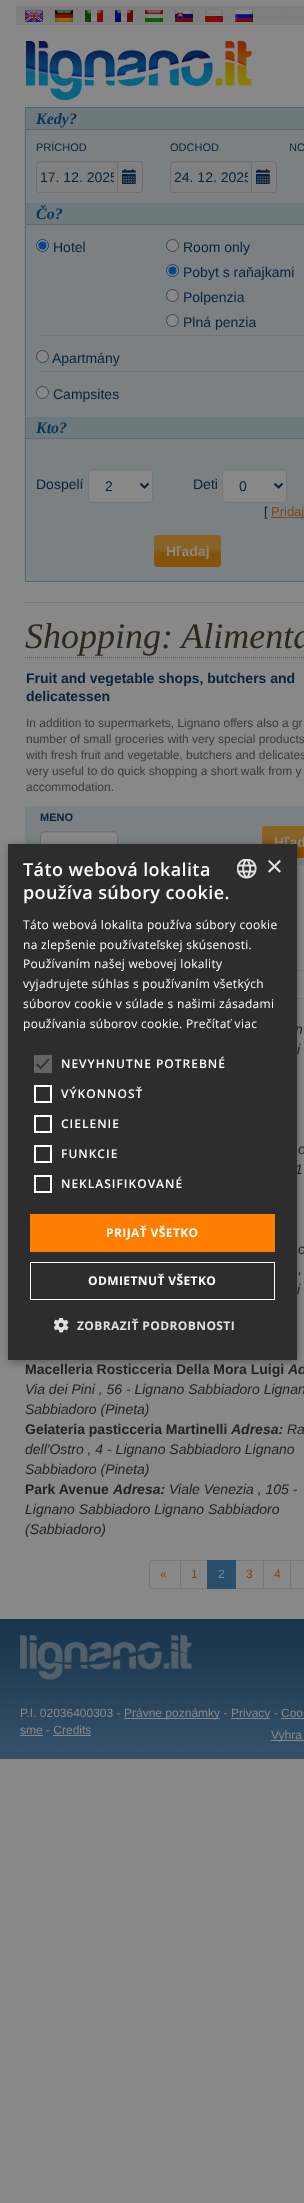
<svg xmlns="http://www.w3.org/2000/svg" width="304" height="2203">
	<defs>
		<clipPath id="clip1"><rect x="40" y="169" width="74" height="16" /></clipPath>
		<clipPath id="clip2"><rect x="174" y="169" width="74" height="16" /></clipPath>
		<linearGradient id="g1" gradientUnits="userSpaceOnUse" x1="188" y1="535" x2="188" y2="567"><stop offset="0" stop-color="#886224" /><stop offset="0.42" stop-color="#886224" /><stop offset="0.59" stop-color="#865209" /><stop offset="1" stop-color="#865209" /></linearGradient>
		<linearGradient id="g2" gradientUnits="userSpaceOnUse" x1="296" y1="826" x2="296" y2="858"><stop offset="0" stop-color="#886224" /><stop offset="0.42" stop-color="#886224" /><stop offset="0.59" stop-color="#865209" /><stop offset="1" stop-color="#865209" /></linearGradient>
	</defs>
	<rect width="100%" height="100%" fill="#888888" />
	<image x="16" y="6" width="288" height="18" href="assets/img1.png" />
	<rect x="15" y="24" width="289" height="1" fill="#7A7A7A" />
	<image x="25" y="10" width="18" height="12" href="assets/img2.png" />
	<image x="55" y="10" width="18" height="12" href="assets/img3.png" />
	<image x="85" y="10" width="18" height="12" href="assets/img4.png" />
	<image x="115" y="10" width="18" height="12" href="assets/img5.png" />
	<image x="145" y="10" width="18" height="12" href="assets/img6.png" />
	<image x="175" y="10" width="18" height="12" href="assets/img7.png" />
	<image x="205" y="10" width="18" height="12" href="assets/img8.png" />
	<image x="235" y="10" width="18" height="12" href="assets/img9.png" />
	<image x="26" y="41" width="226" height="59" href="assets/img10.png" />
	<rect x="25" y="602" width="279" height="1" fill="#777777" />
	<rect x="26" y="130" width="278" height="451" fill="#7B8182" />
	<rect x="25.5" y="107.5" width="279" height="474" fill="none" stroke="#506570" />
	<rect x="26" y="108" width="278" height="22" fill="#6D797C" />
	<path d="M26 129.5H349" fill="none" stroke="#565656" stroke-dasharray="1 1" />
	<text x="36" y="124" font-family="Liberation Serif" font-size="16" font-weight="700" font-style="italic" fill="#093554">Kedy?</text>
	<text x="36" y="151" font-family="Liberation Sans" font-size="11" fill="#09223C">PRÍCHOD</text>
	<path d="M40 161H118V193H40C38 193 36 191 36 189V165C36 163 38 161 40 161Z" fill="#808080" />
	<path d="M40 163H117V162H40C38 162 37 163 37 165V166C37 164 38 163 40 163Z" fill="#777777" />
	<path d="M40 161.5H117.5V192.5H40C38 192.5 36.5 191 36.5 189V165C36.5 163 38 161.5 40 161.5Z" fill="none" stroke="#6F6F6F" />
	<g clip-path="url(#clip1)">
		<text x="40" y="182" font-family="Liberation Sans" font-size="14" fill="#09223C">17. 12. 2025</text>
	</g>
	<path d="M118 161H139C141 161 143 163 143 165V189C143 191 141 193 139 193H118Z" fill="#808080" />
	<path d="M118 161H139C141 161 143 163 143 165V189C143 191 141 193 139 193H118ZM118 162H139C140.5 162 142 163.5 142 165V189C142 190.5 140.5 192 139 192H118Z" fill="#6F6F6F" fill-rule="evenodd" />
	<image x="122" y="169" width="14" height="15" href="assets/img11.png" />
	<text x="170" y="151" font-family="Liberation Sans" font-size="11" fill="#09223C">ODCHOD</text>
	<path d="M174 161H252V193H174C172 193 170 191 170 189V165C170 163 172 161 174 161Z" fill="#808080" />
	<path d="M174 163H251V162H174C172 162 171 163 171 165V166C171 164 172 163 174 163Z" fill="#777777" />
	<path d="M174 161.5H251.5V192.5H174C172 192.5 170.5 191 170.5 189V165C170.5 163 172 161.5 174 161.5Z" fill="none" stroke="#6F6F6F" />
	<g clip-path="url(#clip2)">
		<text x="174" y="182" font-family="Liberation Sans" font-size="14" fill="#09223C">24. 12. 2025</text>
	</g>
	<path d="M252 161H273C275 161 277 163 277 165V189C277 191 275 193 273 193H252Z" fill="#808080" />
	<path d="M252 161H273C275 161 277 163 277 165V189C277 191 275 193 273 193H252ZM252 162H273C274.5 162 276 163.5 276 165V189C276 190.5 274.5 192 273 192H252Z" fill="#6F6F6F" fill-rule="evenodd" />
	<image x="256" y="169" width="14" height="15" href="assets/img11.png" />
	<text x="289" y="151" font-family="Liberation Sans" font-size="11" fill="#09223C">NO</text>
	<rect x="26" y="203" width="278" height="22" fill="#6D797C" />
	<path d="M26 224.5H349" fill="none" stroke="#565656" stroke-dasharray="1 1" />
	<text x="36" y="219" font-family="Liberation Serif" font-size="16" font-weight="700" font-style="italic" fill="#093554">Čo?</text>
	<circle cx="42.5" cy="245.5" r="6" fill="#888888" stroke="#094388" />
	<circle cx="42.5" cy="245.5" r="4" fill="#094388" />
	<text x="53" y="252" font-family="Liberation Sans" font-size="14" fill="#09223C">Hotel</text>
	<circle cx="172.5" cy="245.5" r="6" fill="#888888" stroke="#444444" />
	<text x="183" y="252" font-family="Liberation Sans" font-size="14" fill="#09223C">Room only</text>
	<circle cx="172.5" cy="270.5" r="6" fill="#888888" stroke="#094388" />
	<circle cx="172.5" cy="270.5" r="4" fill="#094388" />
	<text x="183" y="277" font-family="Liberation Sans" font-size="14" fill="#09223C">Pobyt s raňajkami</text>
	<circle cx="172.5" cy="295.5" r="6" fill="#888888" stroke="#444444" />
	<text x="183" y="302" font-family="Liberation Sans" font-size="14" fill="#09223C">Polpenzia</text>
	<circle cx="172.5" cy="320.5" r="6" fill="#888888" stroke="#444444" />
	<text x="183" y="327" font-family="Liberation Sans" font-size="14" fill="#09223C">Plná penzia</text>
	<path d="M38 335.5H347" fill="none" stroke="#6F6F6F" stroke-dasharray="1 1" />
	<circle cx="42.5" cy="356.5" r="6" fill="#888888" stroke="#444444" />
	<text x="52" y="363" font-family="Liberation Sans" font-size="14" fill="#09223C">Apartmány</text>
	<path d="M38 371.5H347" fill="none" stroke="#6F6F6F" stroke-dasharray="1 1" />
	<circle cx="42.5" cy="392.5" r="6" fill="#888888" stroke="#444444" />
	<text x="53" y="399" font-family="Liberation Sans" font-size="14" fill="#09223C">Campsites</text>
	<rect x="26" y="417" width="278" height="22" fill="#6D797C" />
	<path d="M26 438.5H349" fill="none" stroke="#565656" stroke-dasharray="1 1" />
	<text x="36" y="433" font-family="Liberation Serif" font-size="16" font-weight="700" font-style="italic" fill="#093554">Kto?</text>
	<text x="36" y="489" font-family="Liberation Sans" font-size="14" fill="#09223C">Dospelí</text>
	<rect x="88" y="469" width="65" height="34" rx="4" fill="#888888" />
	<path d="M92 471H149C151 471 152 472 152 474C152 468 144 470 140 470H102C97 470 89 468 89 474C89 472 90 471 92 471Z" fill="#7F7F7F" />
	<rect x="88.5" y="469.5" width="64" height="33" rx="3.5" fill="none" stroke="#777777" />
	<path d="M140.5 483.5L144.5 487.5L148.5 483.5" fill="none" stroke="#09223C" stroke-width="2" />
	<g font-family="Liberation Sans" font-size="14" fill="#09223C">
		<text x="105" y="491">2</text>
		<text x="193" y="489">Deti</text>
	</g>
	<rect x="222" y="469" width="65" height="34" rx="4" fill="#888888" />
	<path d="M226 471H283C285 471 286 472 286 474C286 468 278 470 274 470H236C231 470 223 468 223 474C223 472 224 471 226 471Z" fill="#7F7F7F" />
	<rect x="222.5" y="469.5" width="64" height="33" rx="3.5" fill="none" stroke="#777777" />
	<path d="M274.5 483.5L278.5 487.5L282.5 483.5" fill="none" stroke="#09223C" stroke-width="2" />
	<text x="239" y="491" font-family="Liberation Sans" font-size="14" fill="#09223C">0</text>
	<text x="264" y="516" font-family="Liberation Sans" font-size="13" fill="#09223C">[</text>
	<rect x="271" y="517" width="33" height="1" fill="#7C4720" />
	<text x="271" y="516" font-family="Liberation Sans" font-size="13" fill="#7C4720">Pridaj</text>
	<rect x="154" y="535" width="67" height="32" rx="4" fill="url(#g1)" />
	<text x="166" y="556" font-family="Liberation Sans" font-size="14" font-weight="700" fill="#888888">Hľadaj</text>
	<path d="M25 657.5H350" fill="none" stroke="#565656" stroke-dasharray="1 1" />
	<text x="25" y="648" font-family="Liberation Serif" font-size="36" font-style="italic" fill="#2E2720">Shopping: Alimenta</text>
	<g font-family="Liberation Sans" font-size="14" font-weight="700" fill="#09223C">
		<text x="26" y="683">Fruit and vegetable shops, butchers and</text>
		<text x="26" y="701">delicatessen</text>
	</g>
	<g font-family="Liberation Sans" font-size="12" fill="#3A3A3A">
		<text x="26" y="727">In addition to supermarkets, Lignano offers also a gr</text>
		<text x="26" y="743">number of small groceries with very special products</text>
		<text x="26" y="759">with fresh fruit and vegetable, butchers and delicates</text>
		<text x="26" y="775">very useful to do quick shopping a short walk from y</text>
		<text x="26" y="791">accommodation.</text>
	</g>
	<rect x="25" y="806" width="279" height="60" fill="#7B8182" />
	<text x="40" y="821" font-family="Liberation Sans" font-size="11" font-weight="700" fill="#09223C">MENO</text>
	<rect x="40" y="831" width="78" height="34" rx="4" fill="#888888" />
	<path d="M44 833H114C116 833 117 834 117 836C117 829 106 832 102 832H56C52 832 41 829 41 836C41 834 42 833 44 833Z" fill="#7F7F7F" />
	<rect x="40.5" y="831.5" width="77" height="33" rx="3.5" fill="none" stroke="#6F6F6F" />
	<rect x="262" y="826" width="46" height="32" rx="4" fill="url(#g2)" />
	<text x="274" y="847" font-family="Liberation Sans" font-size="14" font-weight="700" fill="#888888">Hľad</text>
	<rect x="290.5" y="970.5" width="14" height="28" fill="none" stroke="#777777" />
	<g font-family="Liberation Sans" font-size="14" font-style="italic" fill="#222222">
		<text x="295" y="1034">n</text>
		<text x="297" y="1054">i</text>
		<text x="298" y="1154">o</text>
		<text x="295" y="1174">1</text>
		<text x="298" y="1254">o</text>
		<text x="298" y="1274">,</text>
		<text x="297" y="1294">i</text>
	</g>
	<text x="25" y="1374" font-family="Liberation Sans" font-size="14" font-weight="700" fill="#222222">Macelleria Rosticceria Della Mora Luigi</text>
	<text x="288" y="1374" font-family="Liberation Sans" font-size="14" font-weight="700" font-style="italic" fill="#222222">Ad</text>
	<g font-family="Liberation Sans" font-size="14" font-style="italic" fill="#222222">
		<text x="25" y="1394">Via dei Pini , 56 - Lignano Sabbiadoro Lignan</text>
		<text x="25" y="1414">Sabbiadoro (Pineta)</text>
	</g>
	<text x="25" y="1434" font-family="Liberation Sans" font-size="14" font-weight="700" fill="#222222">Gelateria pasticceria Martinelli</text>
	<text x="231" y="1434" font-family="Liberation Sans" font-size="14" font-weight="700" font-style="italic" fill="#222222">Adresa:</text>
	<g font-family="Liberation Sans" font-size="14" font-style="italic" fill="#222222">
		<text x="287" y="1434">Ra</text>
		<text x="25" y="1454">dell'Ostro , 4 - Lignano Sabbiadoro Lignano</text>
		<text x="25" y="1474">Sabbiadoro (Pineta)</text>
	</g>
	<text x="25" y="1494" font-family="Liberation Sans" font-size="14" font-weight="700" fill="#222222">Park Avenue</text>
	<text x="113" y="1494" font-family="Liberation Sans" font-size="14" font-weight="700" font-style="italic" fill="#222222">Adresa:</text>
	<g font-family="Liberation Sans" font-size="14" font-style="italic" fill="#222222">
		<text x="169" y="1494">Viale Venezia , 105 -</text>
		<text x="25" y="1514">Lignano Sabbiadoro Lignano Sabbiadoro</text>
		<text x="25" y="1534">(Sabbiadoro)</text>
	</g>
	<path d="M152 1560.5H180.5V1588.5H152C150.5 1588.5 149.5 1587.5 149.5 1586V1563C149.5 1561.5 150.5 1560.5 152 1560.5Z" fill="none" stroke="#777777" />
	<text x="160" y="1578" font-family="Liberation Sans" font-size="12" fill="#7C4720">«</text>
	<rect x="180.5" y="1560.5" width="27" height="28" fill="none" stroke="#777777" />
	<text x="191" y="1578" font-family="Liberation Sans" font-size="12" fill="#7C4720">1</text>
	<rect x="235.5" y="1560.5" width="28" height="28" fill="none" stroke="#777777" />
	<rect x="207" y="1560" width="29" height="29" fill="#2A4E6E" />
	<text x="218" y="1578" font-family="Liberation Sans" font-size="12" fill="#888888">2</text>
	<text x="246" y="1578" font-family="Liberation Sans" font-size="12" fill="#7C4720">3</text>
	<rect x="263.5" y="1560.5" width="27" height="28" fill="none" stroke="#777777" />
	<text x="274" y="1578" font-family="Liberation Sans" font-size="12" fill="#7C4720">4</text>
	<rect x="290.5" y="1560.5" width="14" height="28" fill="none" stroke="#777777" />
	<rect x="9" y="846" width="289" height="516" fill="#000000" fill-opacity="0.35" filter="blur(4px)" />
	<rect x="8" y="844" width="289" height="516" fill="#2D2D2D" />
	<g font-family="Open Sans" font-size="18" font-weight="600" letter-spacing="0.4" fill="#FFFFFF">
		<text x="23" y="876">Táto webová lokalita</text>
		<text x="23" y="899">používa súbory cookie.</text>
	</g>
	<image x="237" y="859" width="20" height="20" href="assets/img12.png" />
	<text x="266" y="876" font-family="Liberation Sans" font-size="29" fill="#E0E0E0">×</text>
	<g font-family="Open Sans" font-size="12" letter-spacing="0.3" fill="#FFFFFF">
		<text x="23" y="929">Táto webová lokalita používa súbory cookie</text>
		<text x="23" y="949">na zlepšenie používateľskej skúsenosti.</text>
		<text x="23" y="968">Používaním našej webovej lokality</text>
		<text x="23" y="988">vyjadrujete súhlas s používaním všetkých</text>
		<text x="23" y="1008">súborov cookie v súlade s našimi zásadami</text>
		<text x="23" y="1028">používania súborov cookie. Prečítať viac</text>
	</g>
	<rect x="34" y="1055" width="18" height="18" fill="#646464" />
	<path d="M36.5 1064L40.5 1068L49 1059" fill="none" stroke="#2D2D2D" stroke-width="1.8" />
	<text x="61" y="1068" font-family="Open Sans" font-size="12" font-weight="600" letter-spacing="1" fill="#FFFFFF">NEVYHNUTNE POTREBNÉ</text>
	<rect x="35" y="1086" width="16" height="16" fill="none" stroke="#FFFFFF" stroke-width="2" />
	<text x="61" y="1098" font-family="Open Sans" font-size="12" font-weight="600" letter-spacing="1" fill="#FFFFFF">VÝKONNOSŤ</text>
	<rect x="35" y="1116" width="16" height="16" fill="none" stroke="#FFFFFF" stroke-width="2" />
	<text x="61" y="1128" font-family="Open Sans" font-size="12" font-weight="600" letter-spacing="1" fill="#FFFFFF">CIELENIE</text>
	<rect x="35" y="1146" width="16" height="16" fill="none" stroke="#FFFFFF" stroke-width="2" />
	<text x="61" y="1158" font-family="Open Sans" font-size="12" font-weight="600" letter-spacing="1" fill="#FFFFFF">FUNKCIE</text>
	<rect x="35" y="1176" width="16" height="16" fill="none" stroke="#FFFFFF" stroke-width="2" />
	<text x="61" y="1188" font-family="Open Sans" font-size="12" font-weight="600" letter-spacing="1" fill="#FFFFFF">NEKLASIFIKOVANÉ</text>
	<rect x="30" y="1214" width="245" height="38" fill="#FF7D00" />
	<text x="106" y="1237" font-family="Open Sans" font-size="12" font-weight="700" letter-spacing="0.4" fill="#FFFFFF">PRIJAŤ VŠETKO</text>
	<rect x="30.5" y="1262.5" width="244" height="37" fill="none" stroke="#FFFFFF" />
	<text x="88" y="1285" font-family="Open Sans" font-size="12" font-weight="700" letter-spacing="0.4" fill="#FFFFFF">ODMIETNUŤ VŠETKO</text>
	<image x="54" y="1318" width="15" height="15" href="assets/img13.png" />
	<text x="77" y="1330" font-family="Open Sans" font-size="12" font-weight="700" letter-spacing="0.4" fill="#E0E0E0">ZOBRAZIŤ PODROBNOSTI</text>
	<image x="0" y="1619" width="304" height="140" href="assets/img14.png" />
	<image x="20" y="1635" width="172" height="45" href="assets/img15.png" />
	<text x="20" y="1717" font-family="Liberation Sans" font-size="12" fill="#888888">P.I. 02036400303 -</text>
	<rect x="124" y="1718" width="96" height="1" fill="#888888" />
	<text x="124" y="1717" font-family="Liberation Sans" font-size="12" fill="#888888">Právne poznámky -</text>
	<rect x="231" y="1718" width="39" height="1" fill="#888888" />
	<text x="231" y="1717" font-family="Liberation Sans" font-size="12" fill="#888888">Privacy - Coo</text>
	<rect x="281" y="1718" width="23" height="1" fill="#888888" />
	<text x="20" y="1734" font-family="Liberation Sans" font-size="12" fill="#888888">sme - Credits</text>
	<rect x="20" y="1735" width="23" height="1" fill="#888888" />
	<rect x="53" y="1735" width="38" height="1" fill="#888888" />
	<rect x="271" y="1740" width="33" height="1" fill="#888888" />
	<text x="271" y="1739" font-family="Liberation Sans" font-size="12" fill="#888888">Vyhra</text>
</svg>
